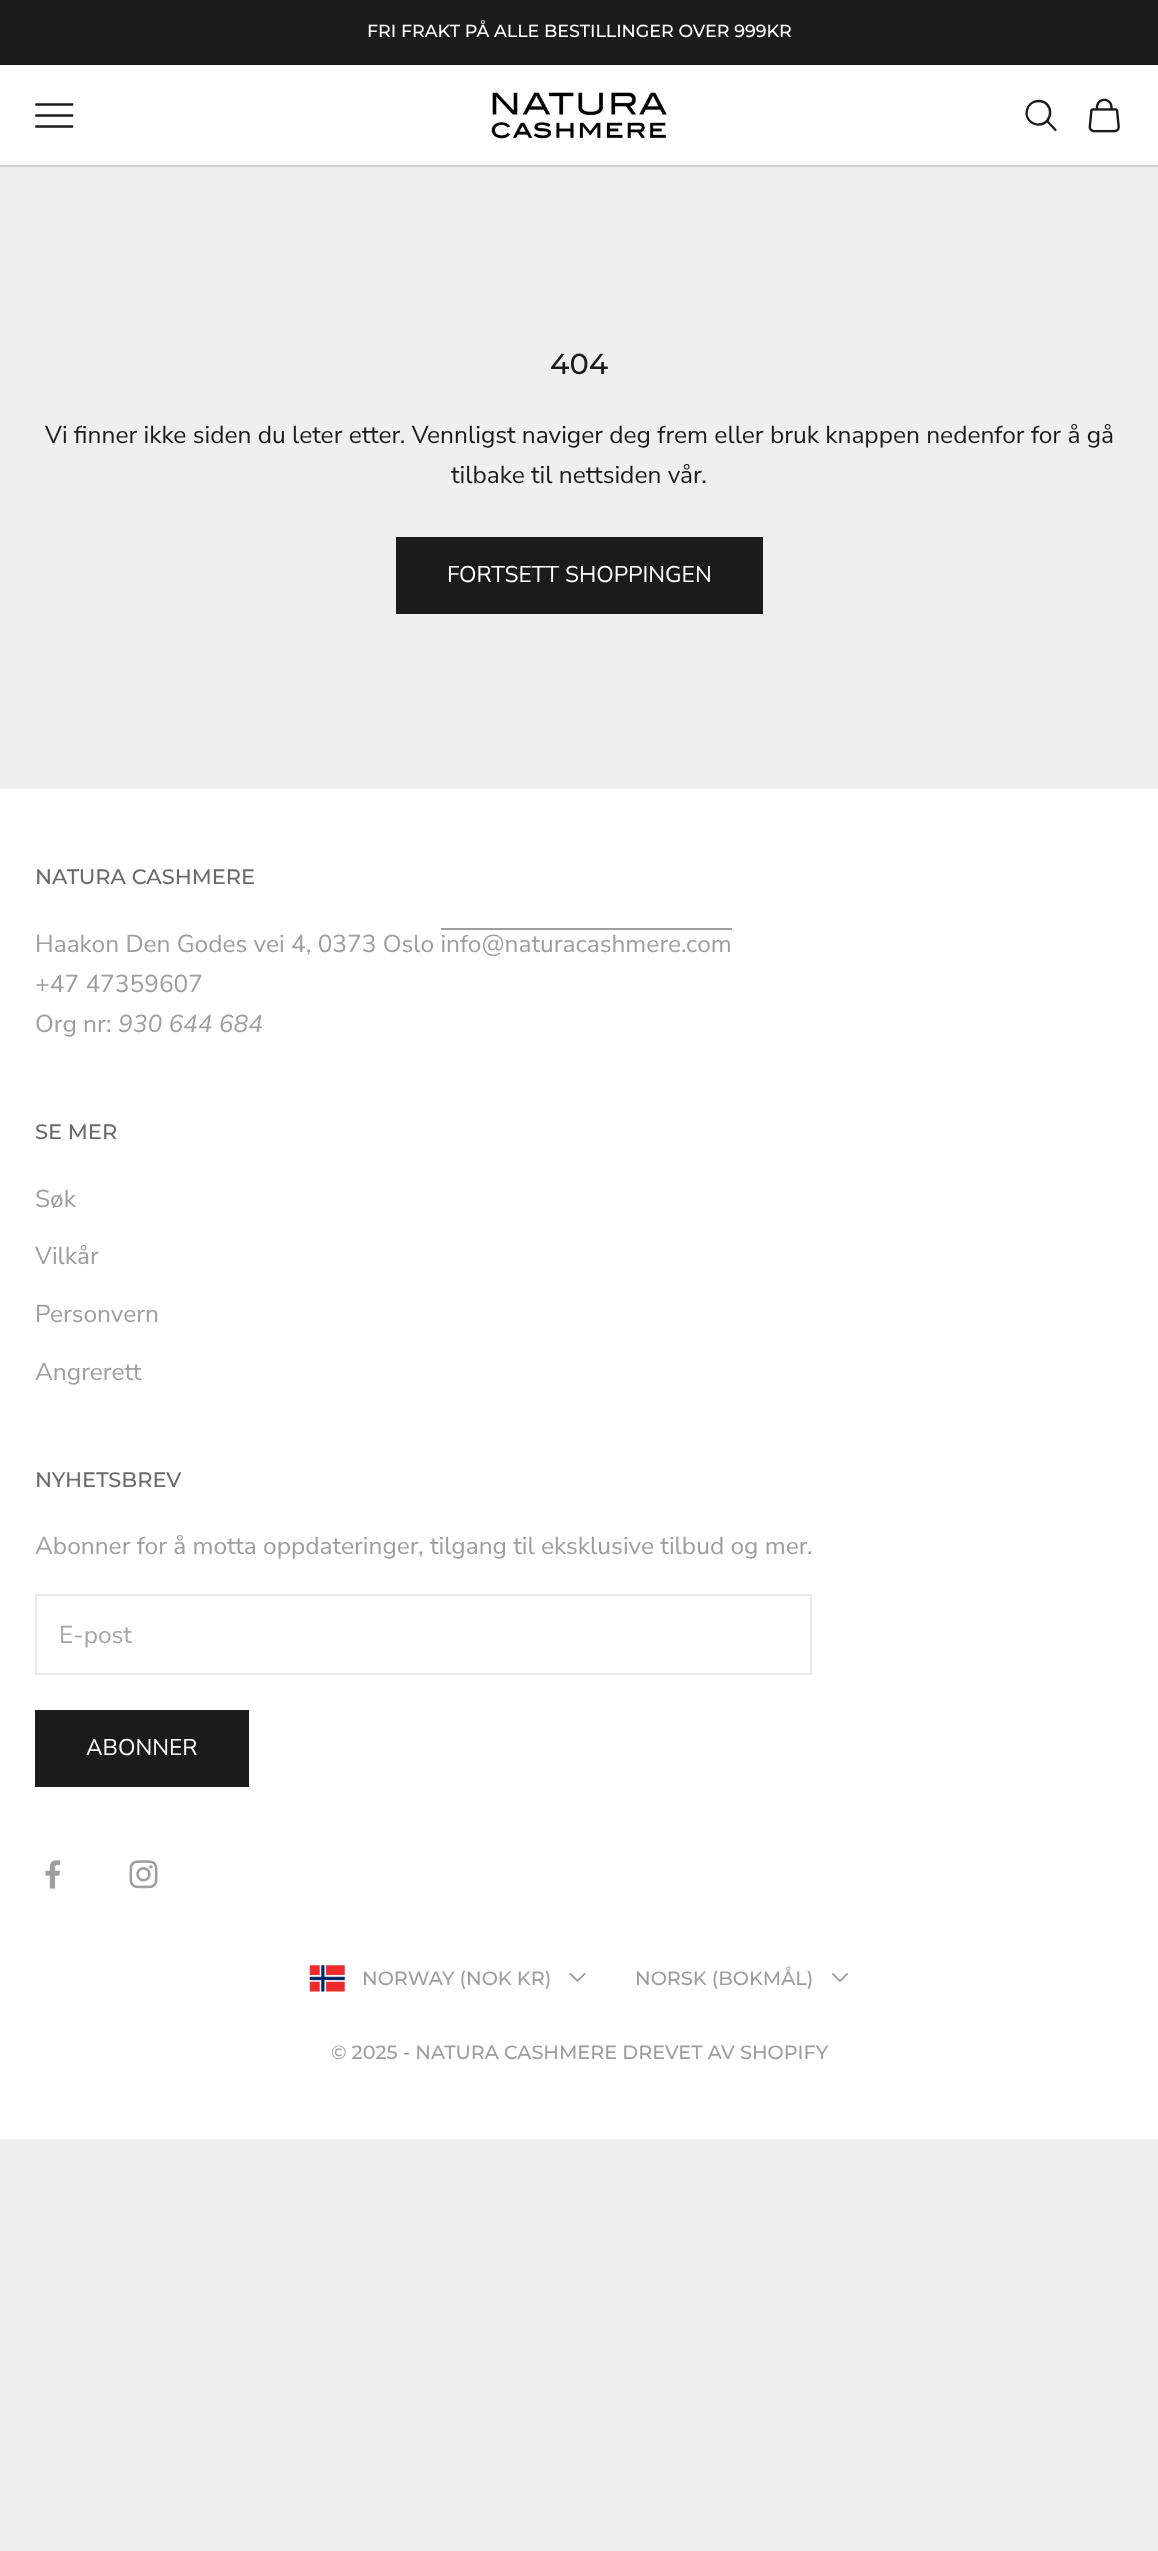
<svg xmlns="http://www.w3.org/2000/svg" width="1158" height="2551">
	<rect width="100%" height="100%" fill="#EFEFEF" />
	<rect x="0" y="0" width="1158" height="65" fill="#1C1C1C" />
	<text x="367" y="37" font-family="Montserrat" font-size="17.5" font-weight="500" fill="#FFFFFF">FRI FRAKT PÅ ALLE BESTILLINGER OVER 999KR</text>
	<rect x="0" y="65" width="1158" height="100" fill="#FFFFFF" />
	<rect x="0" y="165" width="1158" height="2" fill="#CFCFCF" />
	<path d="M36.5 126.5H72M36.5 115.5H72M36.5 104.5H72" fill="none" stroke="#1C1B1B" stroke-width="2.4" stroke-linecap="square" />
	<image x="491" y="92" width="176" height="47" href="assets/img1.png" />
	<path d="M1038.5 101C1026.5 101 1022 117 1032.5 123C1034.5 124 1036.5 125 1038.5 124.5C1054 124 1054 101 1038.5 101Z" fill="none" stroke="#1C1B1B" stroke-width="2.4" />
	<path d="M1047.5 121.5L1055.5 130" fill="none" stroke="#1C1B1B" stroke-width="2.4" stroke-linecap="round" />
	<image x="1088" y="98" width="32" height="35" href="assets/img2.png" />
	<text x="550" y="374" font-family="Montserrat" font-size="29" font-weight="500" fill="#1C1B1B">404</text>
	<g font-family="Nunito Sans" font-size="24.5" fill="#1C1B1B">
		<text x="45" y="443">Vi finner ikke siden du leter etter. Vennligst naviger deg frem eller bruk knappen nedenfor for å gå</text>
		<text x="451" y="483">tilbake til nettsiden vår.</text>
	</g>
	<rect x="397" y="538" width="365" height="75" fill="#1C1B1B" stroke="#1C1B1B" stroke-width="2" />
	<text x="447" y="582" font-family="Nunito Sans" font-size="22.75" fill="#FFFFFF">FORTSETT SHOPPINGEN</text>
	<rect x="0" y="789" width="1158" height="1350" fill="#FFFFFF" />
	<text x="35" y="884" font-family="Montserrat" font-size="21" font-weight="500" fill="#6A6A6A">NATURA CASHMERE</text>
	<rect x="441" y="928" width="291" height="2" fill="#9E9E9E" />
	<g font-family="Nunito Sans" font-size="24.5" fill="#9E9E9E">
		<text x="35" y="952">Haakon Den Godes vei 4, 0373 Oslo info@naturacashmere.com</text>
		<text x="35" y="992">+47 47359607</text>
		<text x="35" y="1032">Org nr:</text>
	</g>
	<text x="118" y="1032" font-family="Nunito Sans" font-size="24.5" font-style="italic" fill="#9E9E9E">930 644 684</text>
	<text x="35" y="1139" font-family="Montserrat" font-size="21" font-weight="500" fill="#6A6A6A">SE MER</text>
	<g font-family="Nunito Sans" font-size="24.5" fill="#9E9E9E">
		<text x="35" y="1207">Søk</text>
		<text x="35" y="1264">Vilkår</text>
		<text x="35" y="1322">Personvern</text>
		<text x="35" y="1380">Angrerett</text>
	</g>
	<text x="35" y="1487" font-family="Montserrat" font-size="21" font-weight="500" fill="#6A6A6A">NYHETSBREV</text>
	<text x="35" y="1554" font-family="Nunito Sans" font-size="24.5" fill="#9E9E9E">Abonner for å motta oppdateringer, tilgang til eksklusive tilbud og mer.</text>
	<rect x="36" y="1595" width="775" height="79" fill="none" stroke="#E9E9E9" stroke-width="2" />
	<text x="59" y="1643" font-family="Nunito Sans" font-size="24.5" fill="#A6A6A6">E-post</text>
	<rect x="36" y="1711" width="212" height="75" fill="#1C1B1B" stroke="#1C1B1B" stroke-width="2" />
	<text x="86" y="1755" font-family="Nunito Sans" font-size="22.75" fill="#FFFFFF">ABONNER</text>
	<image x="45" y="1860" width="16" height="29" href="assets/img3.png" />
	<image x="129" y="1860" width="29" height="29" href="assets/img4.png" />
	<image x="309" y="1965" width="36" height="27" href="assets/img5.png" />
	<text x="362" y="1985" font-family="Montserrat" font-size="19.25" font-weight="500" fill="#9E9E9E">NORWAY (NOK KR)</text>
	<path d="M570.5 1974L577.5 1981L584.5 1974" fill="none" stroke="#9E9E9E" stroke-width="1.8" stroke-linecap="square" />
	<text x="635" y="1985" font-family="Montserrat" font-size="19.25" font-weight="500" fill="#9E9E9E">NORSK (BOKMÅL)</text>
	<path d="M833 1974L840 1981L847 1974" fill="none" stroke="#9E9E9E" stroke-width="1.8" stroke-linecap="square" />
	<text x="331" y="2059" font-family="Montserrat" font-size="19.25" font-weight="500" fill="#9E9E9E">© 2025 - NATURA CASHMERE DREVET AV SHOPIFY</text>
</svg>
